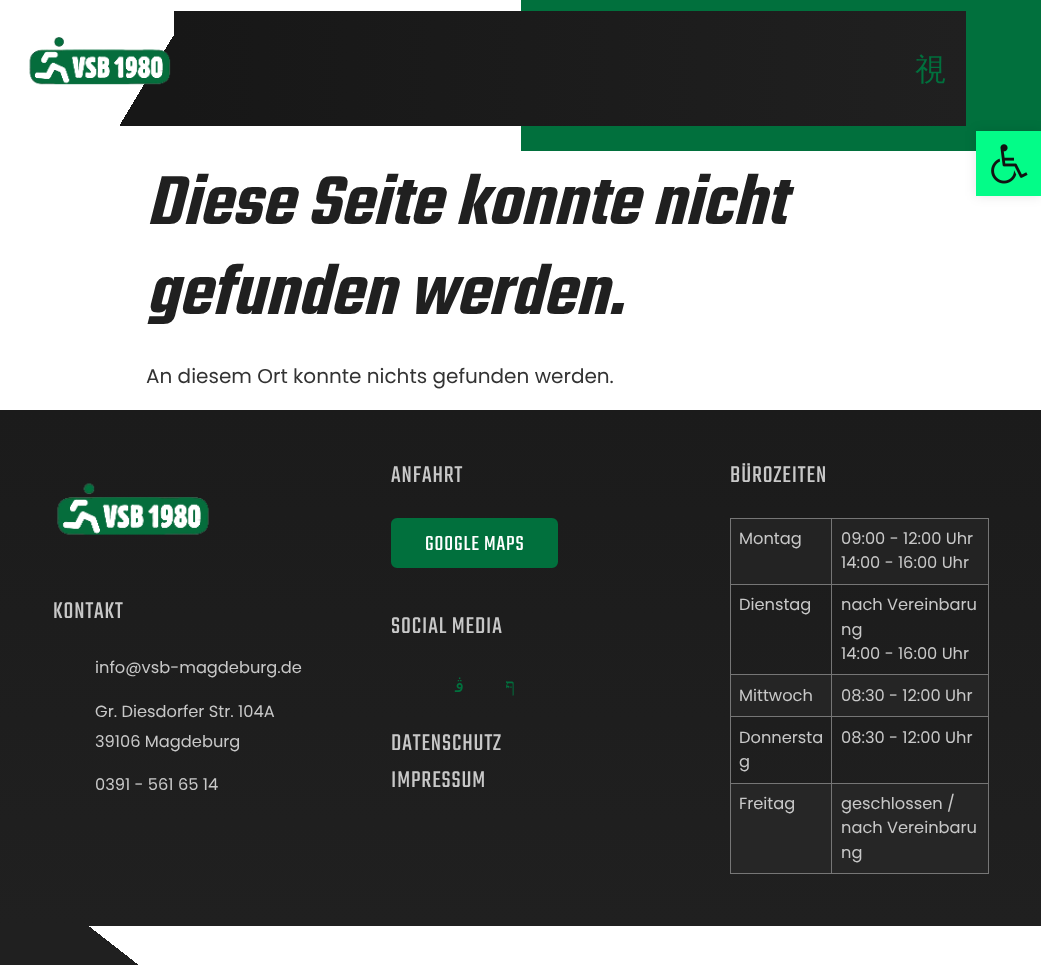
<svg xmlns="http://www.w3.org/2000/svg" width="1041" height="965">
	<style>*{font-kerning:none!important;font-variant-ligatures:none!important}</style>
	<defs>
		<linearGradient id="g1" gradientUnits="userSpaceOnUse" x1="19" y1="21" x2="179" y2="117"><stop offset="0.75" stop-color="#FFFFFF" /><stop offset="0.75" stop-color="#171717" /></linearGradient>
		<linearGradient id="g2" gradientUnits="userSpaceOnUse" x1="966" y1="69" x2="174" y2="69"><stop offset="0" stop-color="#202020" /><stop offset="1" stop-color="#171717" /></linearGradient>
		<linearGradient id="g3" gradientUnits="userSpaceOnUse" x1="521" y1="410" x2="521" y2="926"><stop offset="0" stop-color="#1B1B1B" /><stop offset="1" stop-color="#202020" /></linearGradient>
		<linearGradient id="g4" gradientUnits="userSpaceOnUse" x1="764" y1="710" x2="277" y2="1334"><stop offset="0.74" stop-color="#FFFFFF" /><stop offset="0.74" stop-color="#202020" /></linearGradient>
	</defs>
	<rect width="100%" height="100%" fill="#FFFFFF" />
	<rect x="521" y="0" width="520" height="151" fill="#01703D" />
	<rect x="120" y="36" width="54" height="90" fill="url(#g1)" />
	<image x="29" y="37" width="142" height="48" href="assets/img1.png" />
	<rect x="174" y="11" width="792" height="115" fill="url(#g2)" />
	<text x="915" y="80" font-family="WenQuanYi Zen Hei" font-size="31" font-weight="500" letter-spacing="0.9" fill="#01703D">視</text>
	<g font-family="Teko" font-size="75" font-weight="600" font-style="italic" fill="#202020">
		<text x="146" y="224">Diese Seite konnte nicht</text>
		<text x="146" y="314">gefunden werden.</text>
	</g>
	<text x="146" y="383" font-family="Poppins" font-size="20" fill="#333333">An diesem Ort konnte nichts gefunden werden.</text>
	<rect x="0" y="410" width="1041" height="516" fill="url(#g3)" />
	<image x="57" y="483" width="152" height="52" href="assets/img2.png" />
	<text x="53" y="618" font-family="Teko" font-size="25" letter-spacing="0.9" fill="#C8C8C8">KONTAKT</text>
	<g font-family="Poppins" font-size="16.25" fill="#C8C8C8">
		<text x="95" y="673">info@vsb-magdeburg.de</text>
		<text x="95" y="717">Gr. Diesdorfer Str. 104A</text>
		<text x="95" y="747">39106 Magdeburg</text>
		<text x="95" y="790">0391 - 561 65 14</text>
	</g>
	<text x="391" y="482" font-family="Teko" font-size="25" letter-spacing="0.9" fill="#C8C8C8">ANFAHRT</text>
	<rect x="392.5" y="519.5" width="164" height="47" rx="4.5" fill="#01703D" stroke="#01703D" stroke-width="3" />
	<text x="425" y="550" font-family="Teko" font-size="22.5" letter-spacing="0.9" fill="#FFFFFF">GOOGLE MAPS</text>
	<text x="391" y="633" font-family="Teko" font-size="25" letter-spacing="0.9" fill="#C8C8C8">SOCIAL MEDIA</text>
	<text x="464" y="692" font-family="DejaVu Sans" font-size="19" direction="rtl" fill="#01703D">ﭬ</text>
	<text x="515" y="692" font-family="Liberation Serif" font-size="19" direction="rtl" fill="#01703D">ףּ</text>
	<g font-family="Teko" font-size="25" letter-spacing="0.9" fill="#C8C8C8">
		<text x="391" y="750">DATENSCHUTZ</text>
		<text x="391" y="787">IMPRESSUM</text>
		<text x="730" y="482">BÜROZEITEN</text>
	</g>
	<rect x="731" y="519" width="257" height="65" fill="#232323" />
	<rect x="831" y="518" width="158" height="1" fill="#767676" />
	<rect x="831" y="584" width="158" height="1" fill="#767676" />
	<rect x="831" y="674" width="158" height="1" fill="#767676" />
	<rect x="731" y="675" width="257" height="41" fill="#252525" />
	<rect x="831" y="716" width="158" height="1" fill="#767676" />
	<rect x="831" y="783" width="158" height="1" fill="#767676" />
	<rect x="731" y="784" width="257" height="89" fill="#262626" />
	<rect x="988" y="783" width="1" height="91" fill="#767676" />
	<rect x="831" y="873" width="158" height="1" fill="#767676" />
	<rect x="831" y="783" width="1" height="91" fill="#767676" />
	<rect x="730" y="783" width="103" height="1" fill="#767676" />
	<rect x="831" y="716" width="1" height="68" fill="#767676" />
	<rect x="730" y="716" width="103" height="1" fill="#767676" />
	<rect x="831" y="674" width="1" height="44" fill="#767676" />
	<rect x="730" y="674" width="103" height="1" fill="#767676" />
	<rect x="831" y="584" width="1" height="91" fill="#767676" />
	<rect x="730" y="584" width="103" height="1" fill="#767676" />
	<rect x="831" y="518" width="1" height="67" fill="#767676" />
	<rect x="730" y="518" width="103" height="1" fill="#767676" />
	<rect x="730" y="873" width="103" height="1" fill="#767676" />
	<rect x="730" y="783" width="1" height="91" fill="#767676" />
	<rect x="730" y="716" width="1" height="68" fill="#767676" />
	<rect x="730" y="674" width="1" height="44" fill="#767676" />
	<rect x="730" y="584" width="1" height="91" fill="#767676" />
	<rect x="730" y="518" width="1" height="67" fill="#767676" />
	<text x="739" y="544" font-family="Poppins" font-size="16.25" fill="#C8C8C8">Montag</text>
	<rect x="988" y="716" width="1" height="68" fill="#767676" />
	<rect x="988" y="674" width="1" height="44" fill="#767676" />
	<rect x="988" y="584" width="1" height="91" fill="#767676" />
	<rect x="988" y="518" width="1" height="67" fill="#767676" />
	<g font-family="Poppins" font-size="16.25" fill="#C8C8C8">
		<text x="841" y="544">09:00 - 12:00 Uhr</text>
		<text x="841" y="568">14:00 - 16:00 Uhr</text>
		<text x="739" y="610">Dienstag</text>
		<text x="841" y="610">nach Vereinbaru</text>
		<text x="841" y="635">ng</text>
		<text x="841" y="659">14:00 - 16:00 Uhr</text>
		<text x="739" y="701">Mittwoch</text>
		<text x="841" y="701">08:30 - 12:00 Uhr</text>
		<text x="739" y="743">Donnersta</text>
		<text x="739" y="767">g</text>
		<text x="841" y="743">08:30 - 12:00 Uhr</text>
		<text x="739" y="809">Freitag</text>
		<text x="841" y="809">geschlossen /</text>
		<text x="841" y="833">nach Vereinbaru</text>
		<text x="841" y="858">ng</text>
	</g>
	<rect x="0" y="926" width="138" height="39" fill="url(#g4)" />
	<rect x="976" y="131" width="65" height="65" fill="#000000" fill-opacity="0.1" filter="blur(6px)" />
	<rect x="976" y="131" width="65" height="65" fill="#03FC88" />
	<image x="991" y="144" width="37" height="40" href="assets/img3.png" />
</svg>
